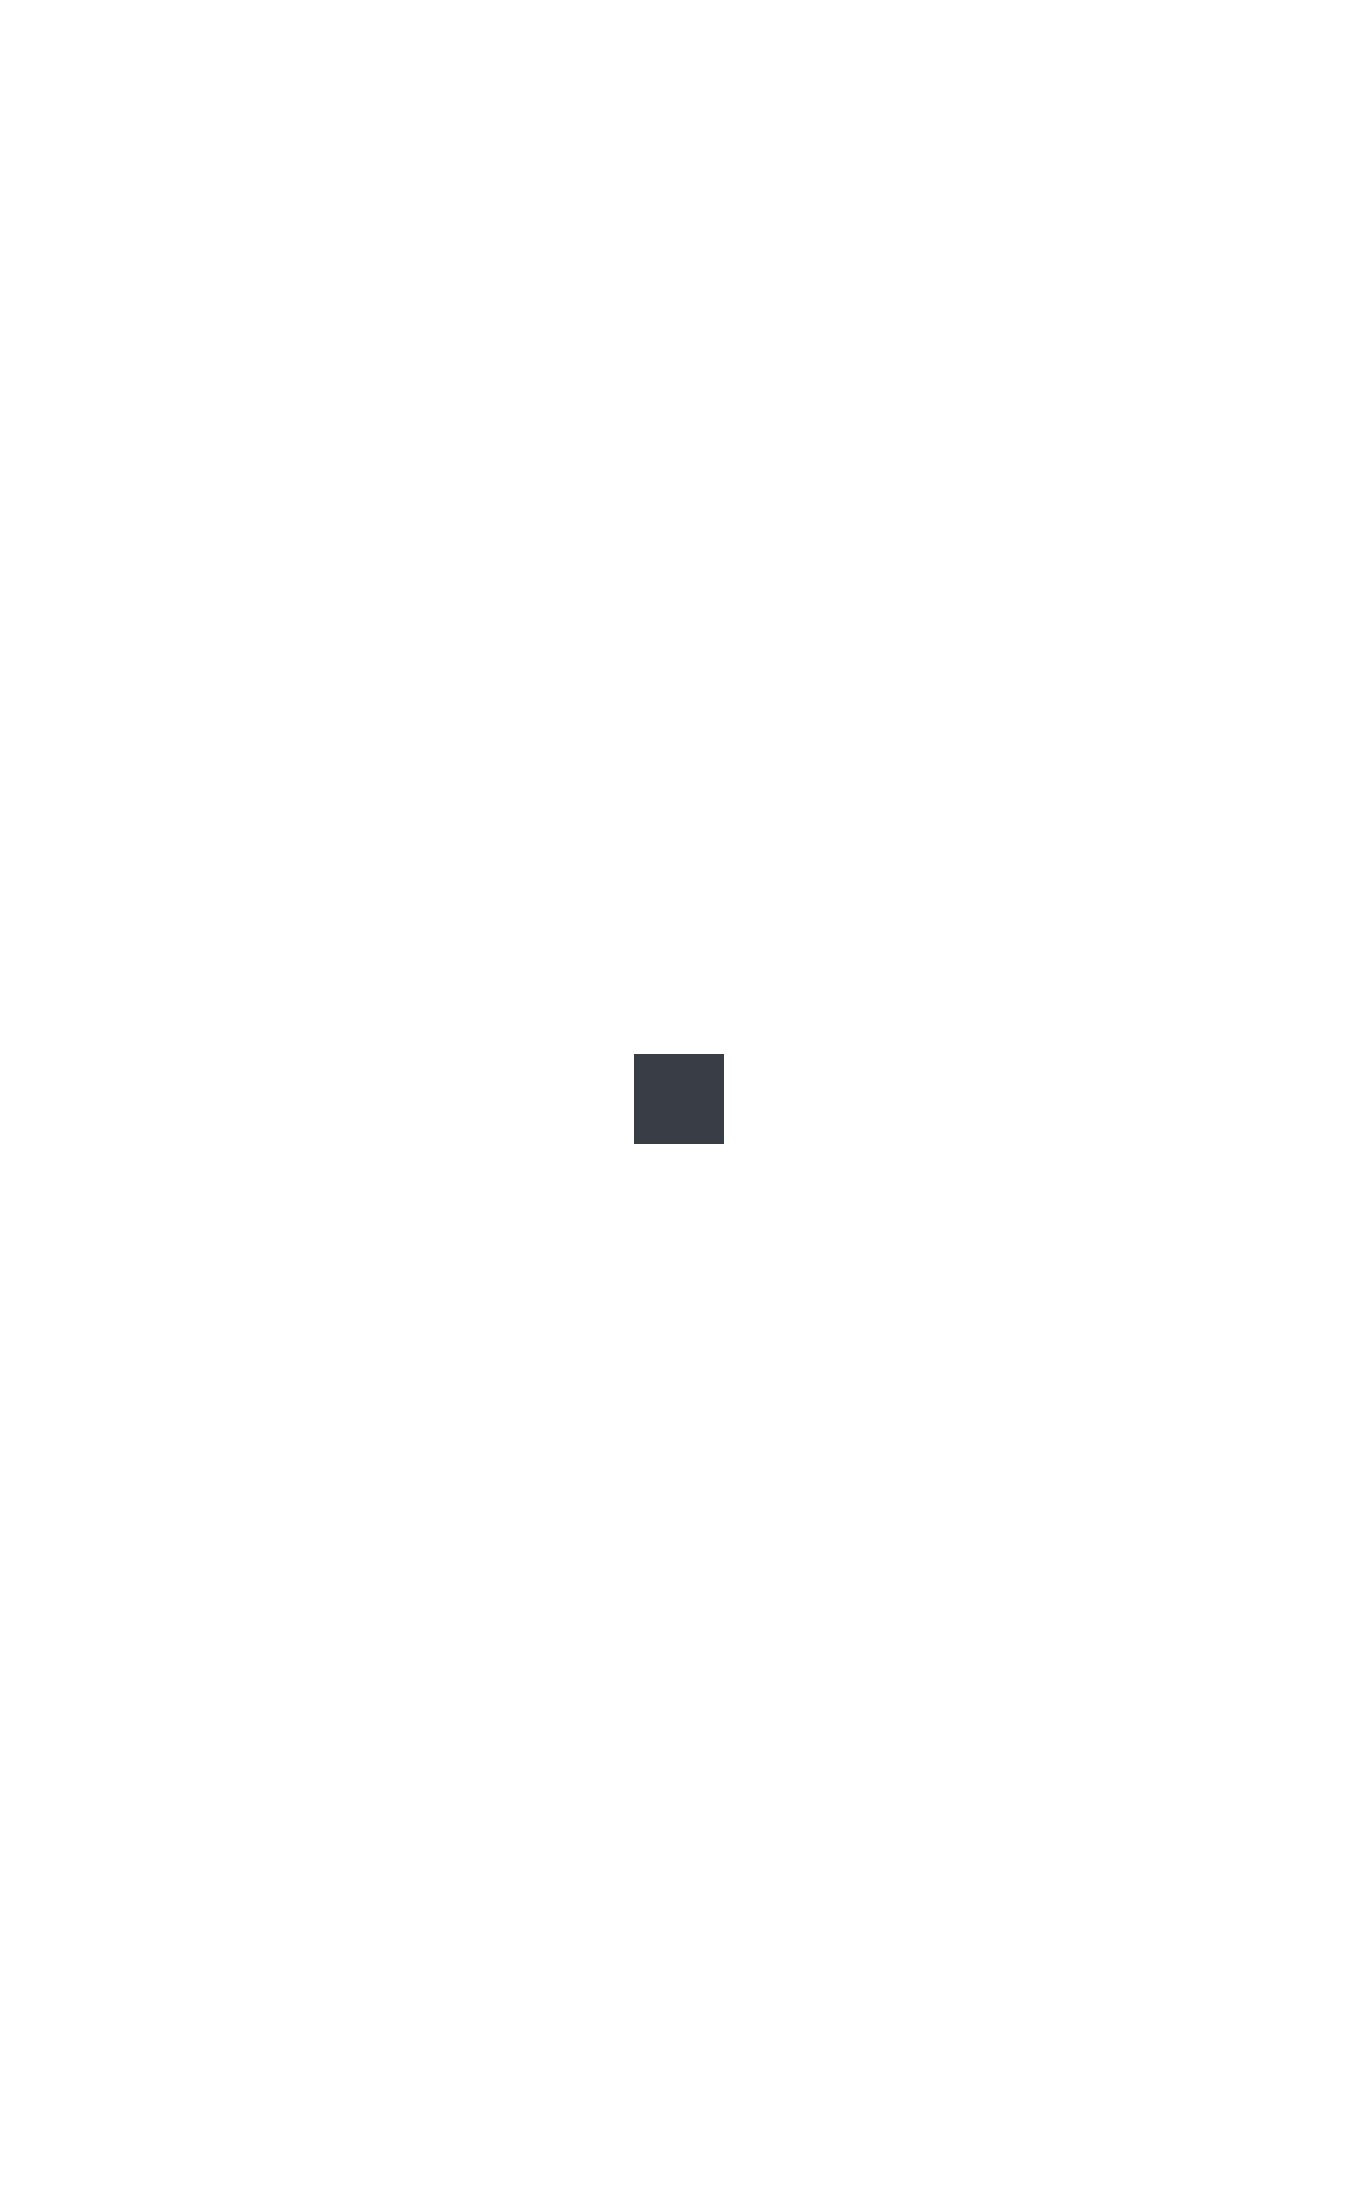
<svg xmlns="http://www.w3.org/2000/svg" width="1358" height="2198">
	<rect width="100%" height="100%" fill="#FFFFFF" />
	<rect x="634" y="1054" width="90" height="90" fill="#393E46" />
</svg>
